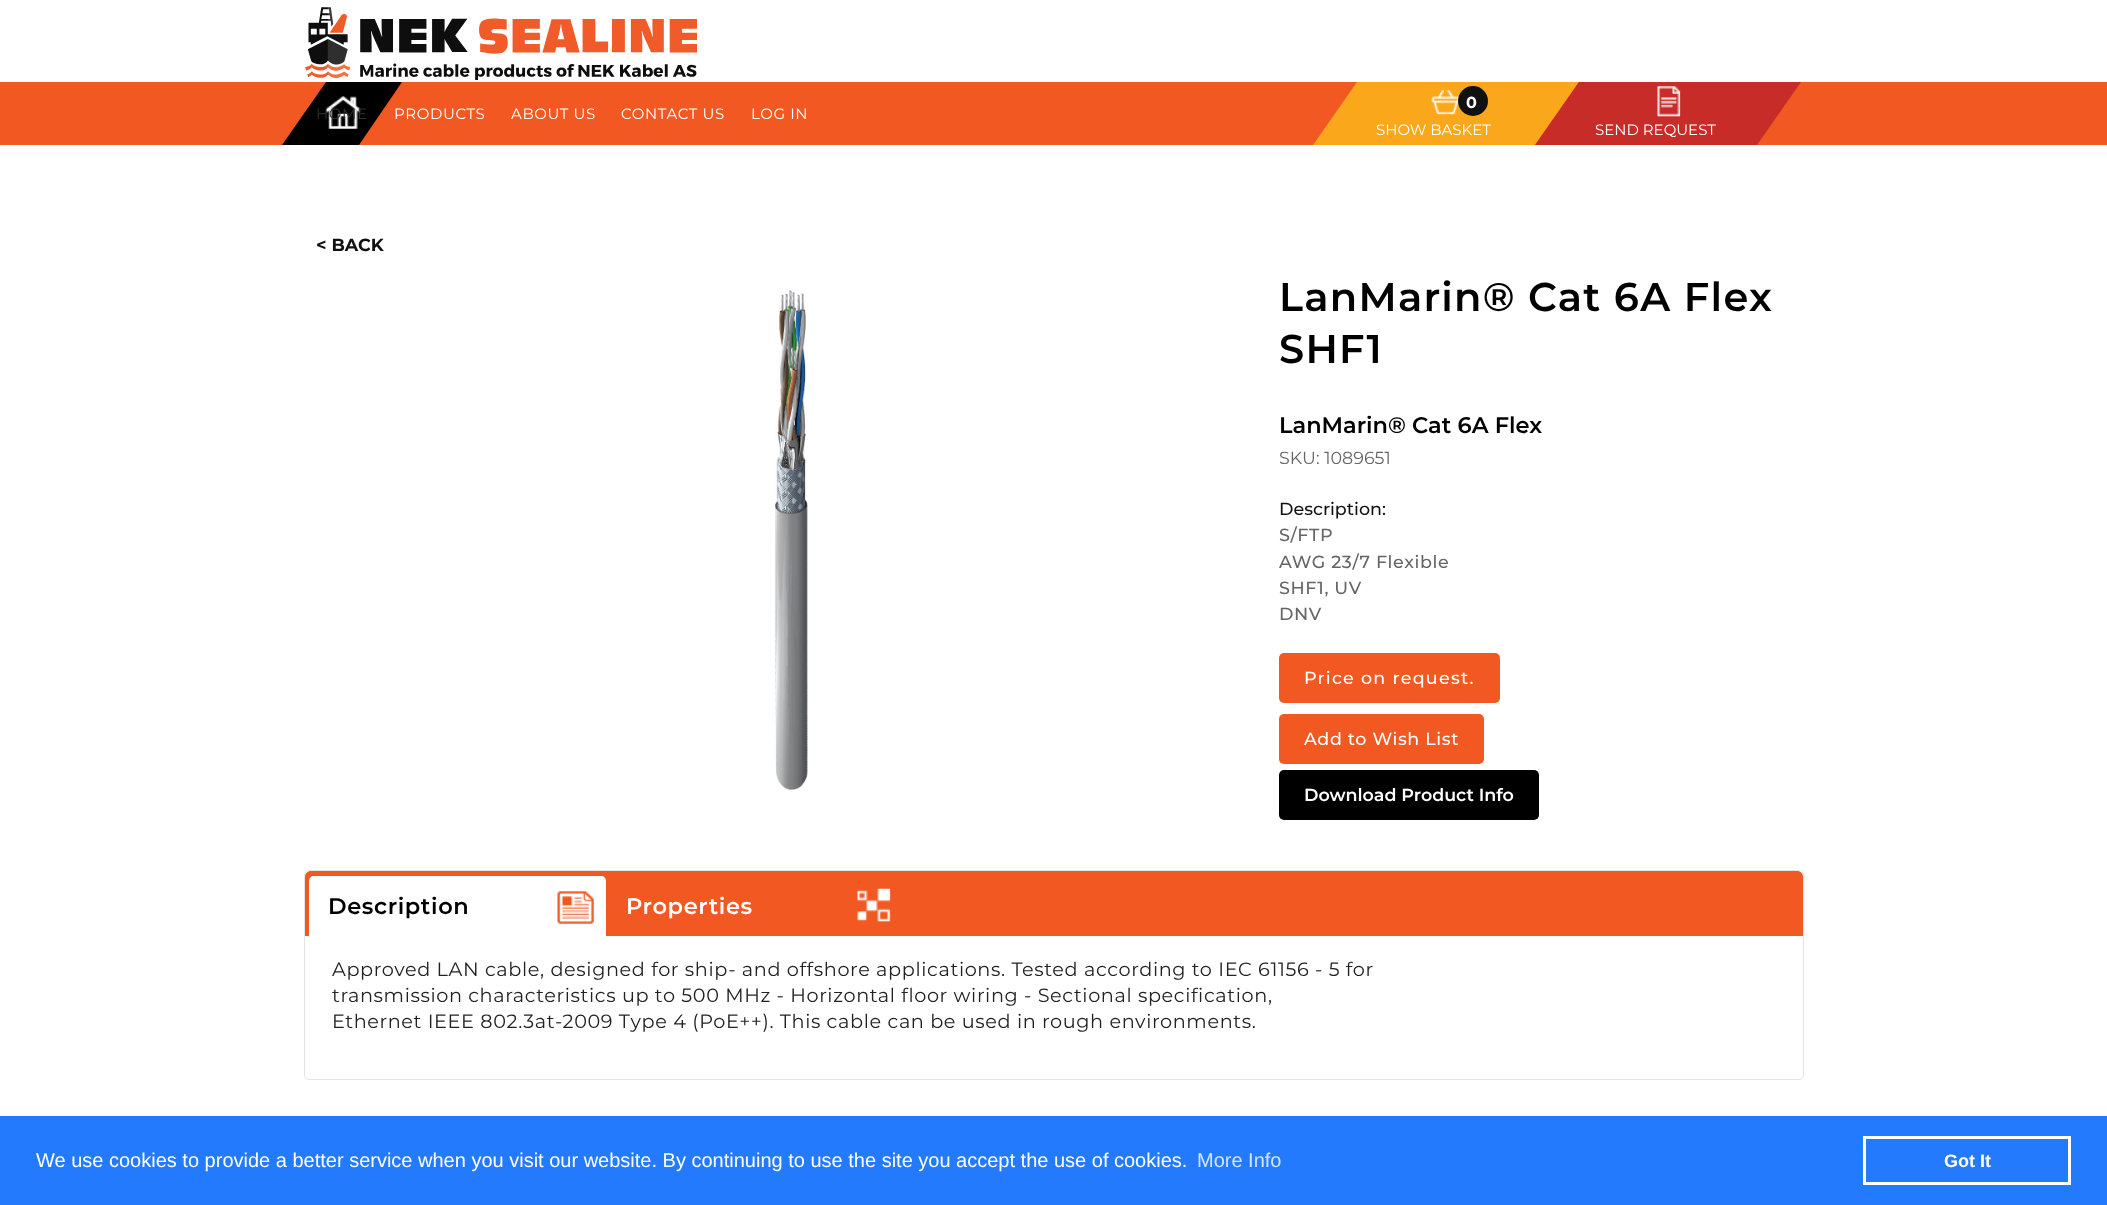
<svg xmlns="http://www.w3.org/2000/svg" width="2107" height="1205">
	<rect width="100%" height="100%" fill="#FFFFFF" />
	<rect x="0" y="82" width="2107" height="63" fill="#F25822" />
	<image x="305" y="7" width="392" height="73" href="assets/img1.png" />
	<path d="M326 82H402L359 145H282Z" fill="#000000" />
	<image x="326" y="96" width="35" height="33" href="assets/img2.png" />
	<text x="316" y="119" font-family="Montserrat" font-size="15" letter-spacing="0.62" fill="#313131">HOME</text>
	<g font-family="Montserrat" font-size="15" letter-spacing="0.62" fill="#FFFFFF">
		<text x="394" y="119">PRODUCTS</text>
		<text x="511" y="119">ABOUT US</text>
		<text x="621" y="119">CONTACT US</text>
		<text x="751" y="119">LOG IN</text>
	</g>
	<path d="M1357 82H1579L1535 145H1313Z" fill="#FAA71B" />
	<image x="1431" y="89" width="28" height="26" href="assets/img3.png" />
	<text x="1376" y="135" font-family="Montserrat" font-size="15" fill="#FFFFFF">SHOW BASKET</text>
	<path d="M1579 82H1801L1757 145H1535Z" fill="#C72C28" />
	<image x="1657" y="86" width="24" height="31" href="assets/img4.png" />
	<circle cx="1473" cy="101" r="15" fill="#111111" />
	<text x="1466" y="108" font-family="Montserrat" font-size="16" font-weight="700" fill="#FFFFFF">0</text>
	<text x="1595" y="135" font-family="Montserrat" font-size="15" fill="#FFFFFF">SEND REQUEST</text>
	<text x="316" y="251" font-family="Montserrat" font-size="17.5" font-weight="700" fill="#111111">&lt; BACK</text>
	<image x="775" y="290" width="33" height="500" href="assets/img5.png" />
	<g font-family="Montserrat" font-size="40" font-weight="600" letter-spacing="1.25" fill="#000000">
		<text x="1279" y="311">LanMarin® Cat 6A Flex</text>
		<text x="1279" y="363">SHF1</text>
	</g>
	<text x="1279" y="433" font-family="Montserrat" font-size="22.5" font-weight="600" fill="#000000">LanMarin® Cat 6A Flex</text>
	<text x="1279" y="464" font-family="Montserrat" font-size="17.5" fill="#666666">SKU: 1089651</text>
	<text x="1279" y="515" font-family="Montserrat" font-size="17.5" font-weight="500" fill="#111111">Description:</text>
	<g font-family="Montserrat" font-size="17.5" font-weight="500" letter-spacing="0.62" fill="#666666">
		<text x="1279" y="541">S/FTP</text>
		<text x="1279" y="568">AWG 23/7 Flexible</text>
		<text x="1279" y="594">SHF1, UV</text>
		<text x="1279" y="620">DNV</text>
	</g>
	<rect x="1279" y="653" width="221" height="50" rx="5" fill="#F25822" />
	<text x="1304" y="684" font-family="Montserrat" font-size="17.5" font-weight="500" letter-spacing="1.25" fill="#FFFFFF">Price on request.</text>
	<rect x="1279" y="714" width="205" height="50" rx="5" fill="#F25822" />
	<text x="1304" y="745" font-family="Montserrat" font-size="17.5" font-weight="500" letter-spacing="0.62" fill="#FFFFFF">Add to Wish List</text>
	<rect x="1279" y="770" width="260" height="50" rx="5" fill="#000000" />
	<text x="1304" y="801" font-family="Montserrat" font-size="17.5" font-weight="600" fill="#FFFFFF">Download Product Info</text>
	<rect x="304.5" y="870.5" width="1499" height="209" rx="4.5" fill="none" stroke="#E4E4E4" />
	<path d="M311 871H1797C1800.5 871 1803 873.5 1803 877V936H305V877C305 873.5 307.5 871 311 871Z" fill="#F25822" />
	<path d="M314 876H601C604 876 606 878 606 881V938H309V881C309 878 311 876 314 876Z" fill="#FFFFFF" />
	<image x="557" y="891" width="37" height="33" href="assets/img6.png" />
	<text x="328" y="914" font-family="Montserrat" font-size="22.5" font-weight="600" letter-spacing="0.62" fill="#000000">Description</text>
	<image x="857" y="888" width="34" height="34" href="assets/img7.png" />
	<text x="626" y="914" font-family="Montserrat" font-size="22.5" font-weight="600" letter-spacing="0.62" fill="#FFFFFF">Properties</text>
	<g font-family="Montserrat" font-size="19.25" letter-spacing="0.62" fill="#222222">
		<text x="332" y="976">Approved LAN cable, designed for ship- and offshore applications. Tested according to IEC 61156 - 5 for</text>
		<text x="332" y="1002">transmission characteristics up to 500 MHz - Horizontal floor wiring - Sectional specification,</text>
		<text x="332" y="1028">Ethernet IEEE 802.3at-2009 Type 4 (PoE++). This cable can be used in rough environments.</text>
	</g>
	<rect x="0" y="1116" width="2107" height="89" fill="#237AFC" />
	<text x="36" y="1167" font-family="Liberation Sans" font-size="20" fill="#FFFFFF">We use cookies to provide a better service when you visit our website. By continuing to use the site you accept the use of cookies.</text>
	<text x="1197" y="1167" font-family="Liberation Sans" font-size="20" fill="#D3E4FE">More Info</text>
	<rect x="1864.5" y="1137.5" width="205" height="46" fill="none" stroke="#FFFFFF" stroke-width="3" />
	<text x="1944" y="1167" font-family="Liberation Sans" font-size="18" font-weight="700" fill="#FFFFFF">Got It</text>
</svg>
